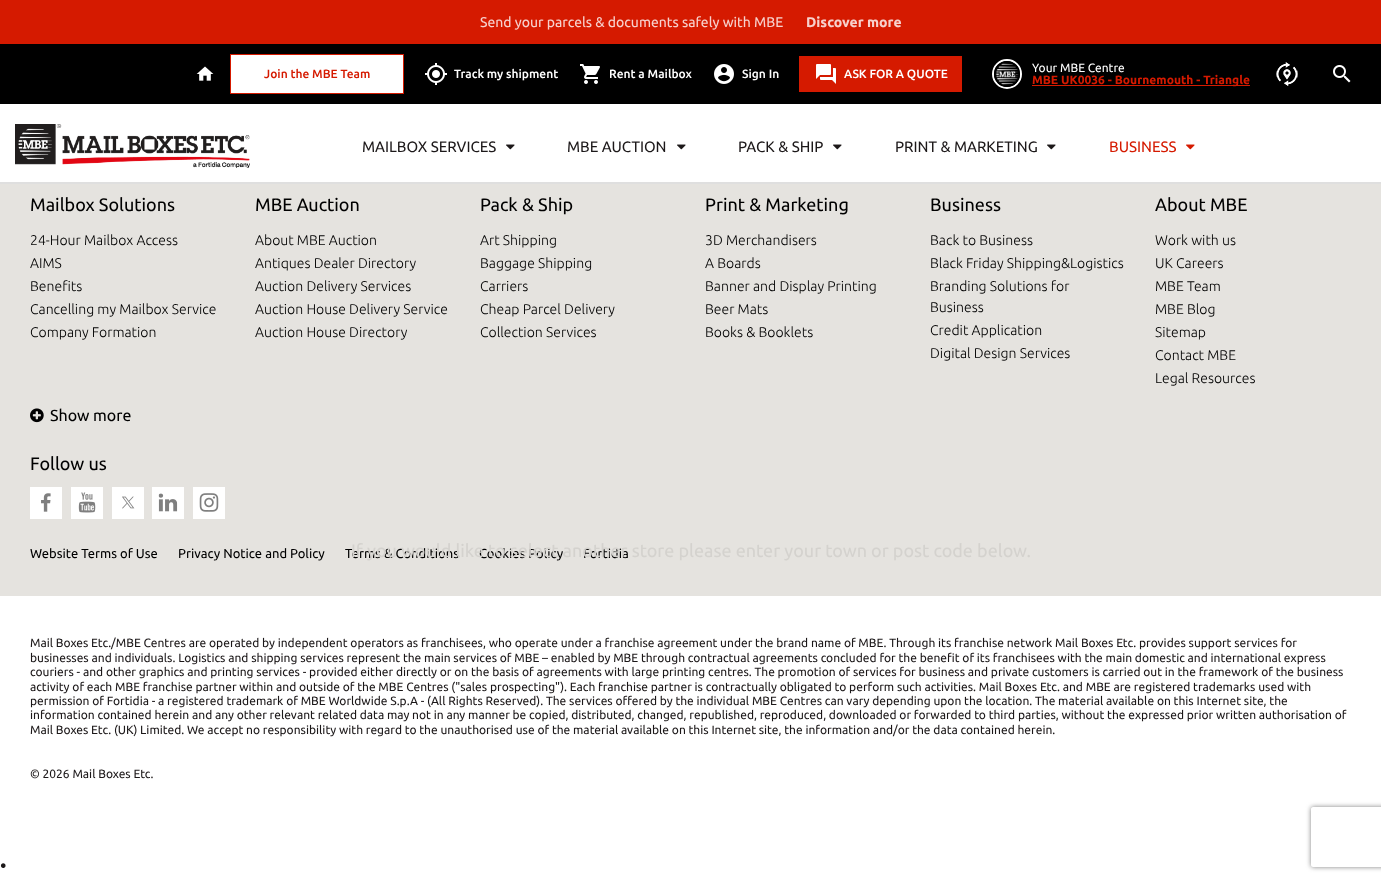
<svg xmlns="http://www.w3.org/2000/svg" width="1381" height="881">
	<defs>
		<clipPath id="clip1"><path d="M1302 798H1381V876H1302ZM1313 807H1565C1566 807 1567 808 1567 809V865C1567 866 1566 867 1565 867H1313C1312 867 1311 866 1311 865V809C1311 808 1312 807 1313 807Z" clip-rule="evenodd" /></clipPath>
	</defs>
	<rect width="100%" height="100%" fill="#FFFFFF" />
	<rect x="0" y="0" width="1381" height="44" fill="#D51A00" />
	<text x="480" y="27" font-family="Ubuntu" font-size="14" fill="#F7D1CC">Send your parcels &amp; documents safely with MBE</text>
	<text x="806" y="27" font-family="Ubuntu" font-size="14" font-weight="700" fill="#F7D1CC">Discover more</text>
	<rect x="0" y="44" width="1381" height="60" fill="#000000" />
	<image x="196" y="66" width="18" height="15" href="assets/img1.png" />
	<rect x="230.5" y="54.5" width="173" height="39" fill="#FFFFFF" stroke="#D51A00" />
	<text x="264" y="78" font-family="Ubuntu" font-size="12" font-weight="500" fill="#D51A00">Join the MBE Team</text>
	<image x="425" y="63" width="22" height="22" href="assets/img2.png" />
	<text x="454" y="78" font-family="Ubuntu" font-size="12" font-weight="500" fill="#FFFFFF">Track my shipment</text>
	<image x="580" y="64" width="20" height="20" href="assets/img3.png" />
	<text x="609" y="78" font-family="Ubuntu" font-size="12" font-weight="500" fill="#FFFFFF">Rent a Mailbox</text>
	<image x="714" y="64" width="20" height="20" href="assets/img4.png" />
	<text x="742" y="78" font-family="Ubuntu" font-size="12" font-weight="500" fill="#FFFFFF">Sign In</text>
	<rect x="799" y="56" width="163" height="36" fill="#D51A00" />
	<image x="816" y="64" width="20" height="20" href="assets/img5.png" />
	<text x="844" y="78" font-family="Ubuntu" font-size="12" font-weight="500" fill="#FFFFFF">ASK FOR A QUOTE</text>
	<circle cx="1007" cy="74" r="14" fill="none" stroke="#FFFFFF" stroke-width="2" />
	<image x="994" y="61" width="26" height="26" href="assets/img6.png" />
	<text x="1032" y="72" font-family="Ubuntu" font-size="12" fill="#FFFFFF">Your MBE Centre</text>
	<rect x="1032" y="85" width="218" height="1" fill="#D51A00" />
	<text x="1032" y="84" font-family="Ubuntu" font-size="12" font-weight="700" fill="#D51A00">MBE UK0036 - Bournemouth - Triangle</text>
	<image x="1276" y="62" width="22" height="24" href="assets/img7.png" />
	<image x="1333" y="65" width="18" height="18" href="assets/img8.png" />
	<rect x="0" y="182" width="1381" height="2" fill="#DFDFDF" />
	<image x="15" y="124" width="235" height="44" href="assets/img9.png" />
	<text x="362" y="152" font-family="Ubuntu" font-size="15" fill="#1C1819">MAILBOX SERVICES</text>
	<image x="506" y="144" width="9" height="6" href="assets/img10.png" />
	<text x="567" y="152" font-family="Ubuntu" font-size="15" fill="#1C1819">MBE AUCTION</text>
	<image x="677" y="144" width="9" height="6" href="assets/img10.png" />
	<text x="738" y="152" font-family="Ubuntu" font-size="15" fill="#1C1819">PACK &amp; SHIP</text>
	<image x="833" y="144" width="9" height="6" href="assets/img10.png" />
	<text x="895" y="152" font-family="Ubuntu" font-size="15" fill="#1C1819">PRINT &amp; MARKETING</text>
	<image x="1047" y="144" width="9" height="6" href="assets/img10.png" />
	<text x="1109" y="152" font-family="Ubuntu" font-size="15" fill="#D51A00">BUSINESS</text>
	<image x="1186" y="144" width="9" height="6" href="assets/img11.png" />
	<rect x="0" y="184" width="1381" height="412" fill="#E5E3DF" />
	<text x="30" y="211" font-family="Ubuntu" font-size="18" fill="#000000">Mailbox Solutions</text>
	<g font-family="Ubuntu" font-size="14" font-weight="300" fill="#000000">
		<text x="30" y="245">24-Hour Mailbox Access</text>
		<text x="30" y="268">AIMS</text>
		<text x="30" y="291">Benefits</text>
		<text x="30" y="314">Cancelling my Mailbox Service</text>
		<text x="30" y="337">Company Formation</text>
	</g>
	<text x="255" y="211" font-family="Ubuntu" font-size="18" fill="#000000">MBE Auction</text>
	<g font-family="Ubuntu" font-size="14" font-weight="300" fill="#000000">
		<text x="255" y="245">About MBE Auction</text>
		<text x="255" y="268">Antiques Dealer Directory</text>
		<text x="255" y="291">Auction Delivery Services</text>
		<text x="255" y="314">Auction House Delivery Service</text>
		<text x="255" y="337">Auction House Directory</text>
	</g>
	<text x="480" y="211" font-family="Ubuntu" font-size="18" fill="#000000">Pack &amp; Ship</text>
	<g font-family="Ubuntu" font-size="14" font-weight="300" fill="#000000">
		<text x="480" y="245">Art Shipping</text>
		<text x="480" y="268">Baggage Shipping</text>
		<text x="480" y="291">Carriers</text>
		<text x="480" y="314">Cheap Parcel Delivery</text>
		<text x="480" y="337">Collection Services</text>
	</g>
	<text x="705" y="211" font-family="Ubuntu" font-size="18" fill="#000000">Print &amp; Marketing</text>
	<g font-family="Ubuntu" font-size="14" font-weight="300" fill="#000000">
		<text x="705" y="245">3D Merchandisers</text>
		<text x="705" y="268">A Boards</text>
		<text x="705" y="291">Banner and Display Printing</text>
		<text x="705" y="314">Beer Mats</text>
		<text x="705" y="337">Books &amp; Booklets</text>
	</g>
	<text x="930" y="211" font-family="Ubuntu" font-size="18" fill="#000000">Business</text>
	<g font-family="Ubuntu" font-size="14" font-weight="300" fill="#000000">
		<text x="930" y="245">Back to Business</text>
		<text x="930" y="268">Black Friday Shipping&amp;Logistics</text>
		<text x="930" y="291">Branding Solutions for</text>
		<text x="930" y="312">Business</text>
		<text x="930" y="335">Credit Application</text>
		<text x="930" y="358">Digital Design Services</text>
	</g>
	<text x="1155" y="211" font-family="Ubuntu" font-size="18" fill="#000000">About MBE</text>
	<g font-family="Ubuntu" font-size="14" font-weight="300" fill="#000000">
		<text x="1155" y="245">Work with us</text>
		<text x="1155" y="268">UK Careers</text>
		<text x="1155" y="291">MBE Team</text>
		<text x="1155" y="314">MBE Blog</text>
		<text x="1155" y="337">Sitemap</text>
		<text x="1155" y="360">Contact MBE</text>
		<text x="1155" y="383">Legal Resources</text>
	</g>
	<image x="30" y="408" width="14" height="15" href="assets/img12.png" />
	<text x="50" y="421" font-family="Ubuntu" font-size="16" fill="#000000">Show more</text>
	<text x="30" y="470" font-family="Ubuntu" font-size="18" fill="#000000">Follow us</text>
	<rect x="30" y="487" width="32" height="32" fill="#FFFFFF" />
	<image x="41" y="493" width="10" height="19" href="assets/img13.png" />
	<rect x="71" y="487" width="32" height="32" fill="#FFFFFF" />
	<image x="78" y="492" width="18" height="21" href="assets/img14.png" />
	<rect x="112" y="487" width="32" height="32" fill="#FFFFFF" />
	<image x="122" y="496" width="13" height="13" href="assets/img15.png" />
	<rect x="152" y="487" width="32" height="32" fill="#FFFFFF" />
	<image x="158" y="493" width="20" height="19" href="assets/img16.png" />
	<rect x="193" y="487" width="32" height="32" fill="#FFFFFF" />
	<image x="199" y="493" width="20" height="19" href="assets/img17.png" />
	<g font-family="Ubuntu" font-size="13" fill="#000000">
		<text x="30" y="558">Website Terms of Use</text>
		<text x="178" y="558">Privacy Notice and Policy</text>
		<text x="345" y="558">Terms &amp; Conditions</text>
		<text x="479" y="558">Cookies Policy</text>
		<text x="583" y="558">Fortidia</text>
	</g>
	<g font-family="Ubuntu" font-size="12" fill="#1C1819">
		<text x="30" y="647">Mail Boxes Etc./MBE Centres are operated by independent operators as franchisees, who operate under a franchise agreement under the brand name of MBE. Through its franchise network Mail Boxes Etc. provides support services for</text>
		<text x="30" y="662">businesses and individuals. Logistics and shipping services represent the main services of MBE – enabled by MBE through contractual agreements concluded for the benefit of its franchisees with the main domestic and international express</text>
		<text x="30" y="676">couriers - and other graphics and printing services - provided either directly or on the basis of agreements with large printing centres. The promotion of services for business and private customers is carried out in the framework of the business</text>
		<text x="30" y="691">activity of each MBE franchise partner within and outside of the MBE Centres ("sales prospecting"). Each franchise partner is contractually obligated to perform such activities. Mail Boxes Etc. and MBE are registered trademarks used with</text>
		<text x="30" y="705">permission of Fortidia - a registered trademark of MBE Worldwide S.p.A - (All Rights Reserved). The services offered by the individual MBE Centres can vary depending upon the location. The material available on this Internet site, the</text>
		<text x="30" y="719">information contained herein and any other relevant related data may not in any manner be copied, distributed, changed, republished, reproduced, downloaded or forwarded to third parties, without the expressed prior written authorisation of</text>
		<text x="30" y="734">Mail Boxes Etc. (UK) Limited. We accept no responsibility with regard to the unauthorised use of the material available on this Internet site, the information and/or the data contained herein.</text>
		<text x="30" y="778">© 2026 Mail Boxes Etc.</text>
	</g>
	<text x="351" y="557" font-family="Ubuntu" font-size="18" fill="#D4D2CE">If you would like to select another store please enter your town or post code below.</text>
	<text x="0" y="872" font-family="Ubuntu" font-size="18" fill="#1C1819">•</text>
	<g clip-path="url(#clip1)">
		<rect x="1311" y="807" width="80" height="60" rx="2" fill="#808080" filter="blur(2.5px)" />
	</g>
</svg>
